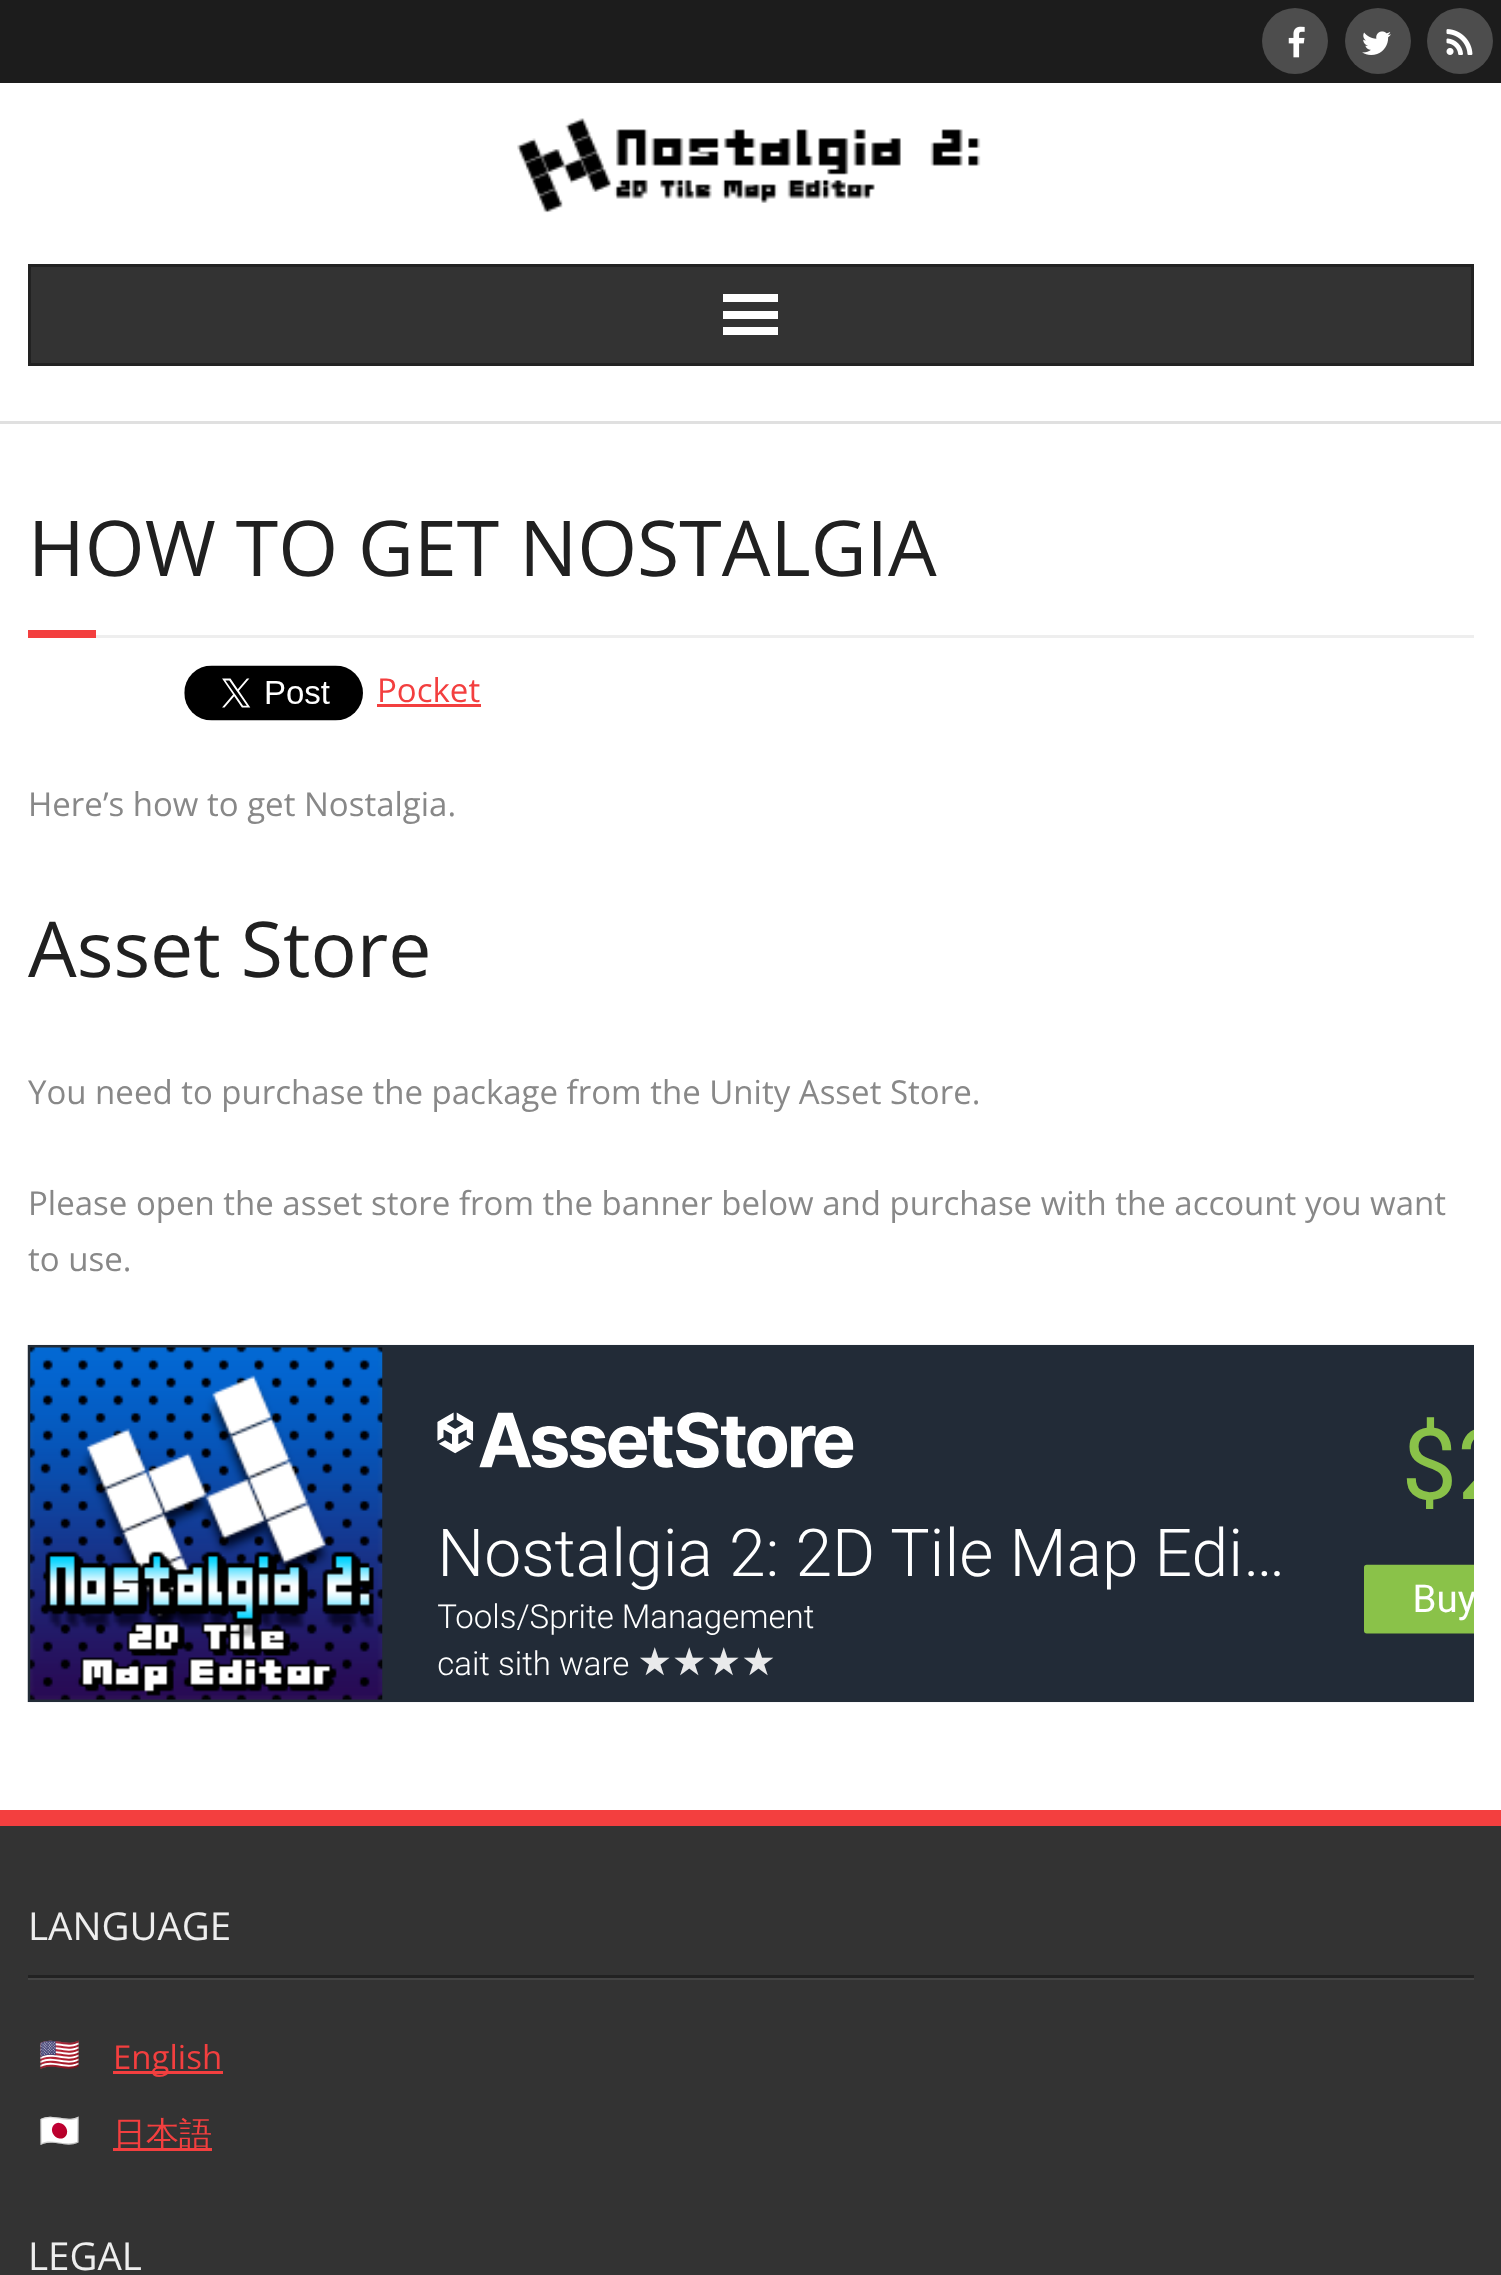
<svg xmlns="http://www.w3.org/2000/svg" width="1501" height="2275">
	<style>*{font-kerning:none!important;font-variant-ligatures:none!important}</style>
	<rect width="100%" height="100%" fill="#FFFFFF" />
	<rect x="0" y="0" width="1501" height="83" fill="#1C1C1C" />
	<circle cx="1295" cy="41" r="33" fill="#4D4D4D" />
	<image x="1288" y="26" width="17" height="32" href="assets/img1.png" />
	<circle cx="1378" cy="41" r="33" fill="#4D4D4D" />
	<image x="1362" y="31" width="29" height="24" href="assets/img2.png" />
	<circle cx="1460" cy="41" r="33" fill="#4D4D4D" />
	<image x="1446" y="29" width="27" height="26" href="assets/img3.png" />
	<rect x="0" y="421" width="1501" height="3" fill="#E0E0E0" />
	<image x="517" y="118" width="464" height="95" href="assets/img4.png" />
	<rect x="29.5" y="265.5" width="1443" height="99" fill="#333333" stroke="#222222" stroke-width="3" />
	<rect x="723" y="294" width="55" height="8" fill="#FFFFFF" />
	<rect x="723" y="311" width="55" height="8" fill="#FFFFFF" />
	<rect x="723" y="327" width="55" height="8" fill="#FFFFFF" />
	<text x="28" y="576" font-family="Open Sans" font-size="77" fill="#202020">HOW TO GET NOSTALGIA</text>
	<rect x="28" y="630" width="68" height="8" fill="#F33F3F" />
	<rect x="96" y="635" width="1378" height="3" fill="#EEEEEE" />
	<image x="184" y="665" width="179" height="56" href="assets/img5.png" />
	<text x="377" y="702" font-family="Open Sans" font-size="33" fill="#F33F3F">Pocket</text>
	<rect x="377" y="704" width="104" height="3" fill="#F33F3F" />
	<text x="28" y="816" font-family="Open Sans" font-size="33" fill="#888888">Here’s how to get Nostalgia.</text>
	<text x="28" y="977" font-family="Open Sans" font-size="77" fill="#202020">Asset Store</text>
	<g font-family="Open Sans" font-size="33" fill="#888888">
		<text x="28" y="1104">You need to purchase the package from the Unity Asset Store.</text>
		<text x="28" y="1215">Please open the asset store from the banner below and purchase with the account you want</text>
		<text x="28" y="1271">to use.</text>
	</g>
	<image x="27" y="1344" width="1447" height="359" href="assets/img6.png" />
	<rect x="0" y="1826" width="1501" height="449" fill="#333333" />
	<rect x="0" y="1810" width="1501" height="16" fill="#F33F3F" />
	<rect x="28" y="1978" width="1446" height="2" fill="#444444" />
	<rect x="28" y="1975" width="1446" height="3" fill="#222222" />
	<text x="28" y="1940" font-family="Open Sans" font-size="38.5" fill="#EEEEEE">LANGUAGE</text>
	<text x="39" y="2066" font-family="Noto Color Emoji" font-size="33" fill="#AAAAAA">🇺🇸</text>
	<rect x="113" y="2071" width="110" height="3" fill="#F33F3F" />
	<text x="113" y="2069" font-family="Open Sans" font-size="33" fill="#F33F3F">English</text>
	<text x="39" y="2142" font-family="Noto Color Emoji" font-size="33" fill="#AAAAAA">🇯🇵</text>
	<rect x="113" y="2148" width="99" height="3" fill="#F33F3F" />
	<text x="113" y="2145" font-family="WenQuanYi Zen Hei" font-size="33" font-weight="500" fill="#F33F3F">日本語</text>
	<text x="28" y="2270" font-family="Open Sans" font-size="38.5" fill="#EEEEEE">LEGAL</text>
</svg>
